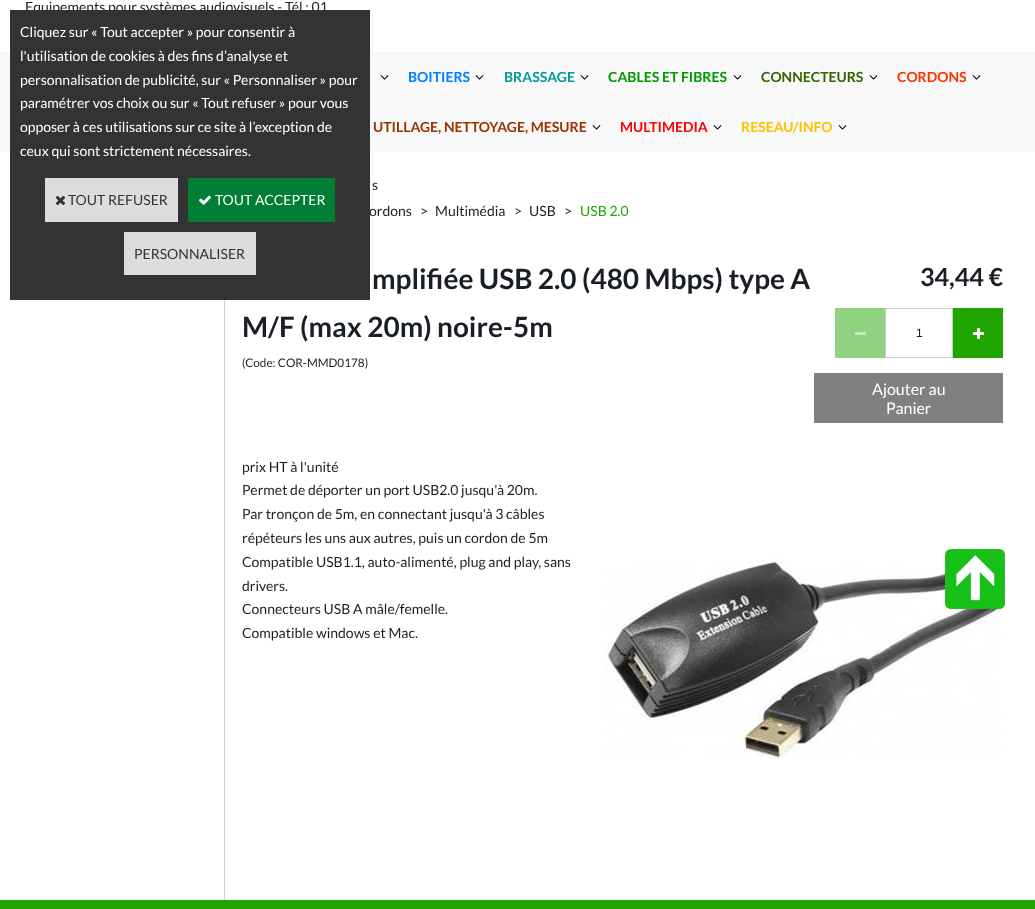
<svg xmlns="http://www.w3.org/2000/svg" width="1035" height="909">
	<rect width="100%" height="100%" fill="#FFFFFF" />
	<text x="25" y="12" font-family="Lato" font-size="14" fill="#1A1F26">Equipements pour systèmes audiovisuels - Tél : 01</text>
	<rect x="0" y="52" width="1035" height="100" fill="#F8F8F8" />
	<image x="380" y="75" width="9" height="5" href="assets/img1.png" />
	<text x="408" y="82" font-family="Lato" font-size="14" font-weight="700" fill="#0080FF">BOITIERS</text>
	<image x="475" y="75" width="9" height="5" href="assets/img1.png" />
	<text x="504" y="82" font-family="Lato" font-size="14" font-weight="700" fill="#009999">BRASSAGE</text>
	<image x="580" y="75" width="9" height="5" href="assets/img1.png" />
	<text x="608" y="82" font-family="Lato" font-size="14" font-weight="700" fill="#009900">CABLES ET FIBRES</text>
	<image x="733" y="75" width="9" height="5" href="assets/img1.png" />
	<text x="761" y="82" font-family="Lato" font-size="14" font-weight="700" fill="#336600">CONNECTEURS</text>
	<image x="869" y="75" width="9" height="5" href="assets/img1.png" />
	<text x="897" y="82" font-family="Lato" font-size="14" font-weight="700" fill="#FF3300">CORDONS</text>
	<image x="972" y="75" width="9" height="5" href="assets/img1.png" />
	<text x="373" y="132" font-family="Lato" font-size="14" font-weight="700" fill="#993300">UTILLAGE, NETTOYAGE, MESURE</text>
	<image x="592" y="125" width="9" height="5" href="assets/img1.png" />
	<text x="620" y="132" font-family="Lato" font-size="14" font-weight="700" fill="#FF0000">MULTIMEDIA</text>
	<image x="713" y="125" width="9" height="5" href="assets/img1.png" />
	<text x="741" y="132" font-family="Lato" font-size="14" font-weight="700" fill="#FFC000">RESEAU/INFO</text>
	<image x="838" y="125" width="9" height="5" href="assets/img1.png" />
	<text x="369" y="216" font-family="Lato" font-size="14" fill="#1A1F26">ordons</text>
	<rect x="10" y="10" width="360" height="290" fill="#333333" />
	<g font-family="Lato" font-size="14" fill="#FFFFFF">
		<text x="20" y="37">Cliquez sur « Tout accepter » pour consentir à</text>
		<text x="20" y="61">l'utilisation de cookies à des fins d’analyse et</text>
		<text x="20" y="85">personnalisation de publicité, sur « Personnaliser » pour</text>
		<text x="20" y="108">paramétrer vos choix ou sur « Tout refuser » pour vous</text>
		<text x="20" y="132">opposer à ces utilisations sur ce site à l’exception de</text>
		<text x="20" y="156">ceux qui sont strictement nécessaires.</text>
	</g>
	<rect x="45" y="178" width="133" height="44" fill="#DDDDDD" />
	<image x="55" y="195" width="11" height="11" href="assets/img2.png" />
	<text x="68" y="205" font-family="Lato" font-size="14" fill="#333333">TOUT REFUSER</text>
	<rect x="188" y="178" width="147" height="44" fill="#007E33" />
	<image x="199" y="195" width="12" height="10" href="assets/img3.png" />
	<text x="215" y="205" font-family="Lato" font-size="14" fill="#FFFFFF">TOUT ACCEPTER</text>
	<rect x="124" y="232" width="132" height="43" fill="#DDDDDD" />
	<text x="134" y="259" font-family="Lato" font-size="14" fill="#333333">PERSONNALISER</text>
	<rect x="224" y="300" width="1" height="600" fill="#D0D0D0" />
	<g font-family="Lato" font-size="14" fill="#1A1F26">
		<text x="372" y="190">s</text>
		<text x="420" y="216">&gt;</text>
		<text x="435" y="216">Multimédia</text>
		<text x="514" y="216">&gt;</text>
		<text x="529" y="216">USB</text>
		<text x="564" y="216">&gt;</text>
	</g>
	<text x="580" y="216" font-family="Lato" font-size="14" fill="#1FA500">USB 2.0</text>
	<g font-family="Lato" font-size="28" font-weight="700" fill="#1A1F26">
		<text x="372" y="289">mplifiée USB 2.0 (480 Mbps) type A</text>
		<text x="242" y="337">M/F (max 20m) noire-5m</text>
	</g>
	<text x="242" y="367" font-family="Lato" font-size="11.75" fill="#1A1F26">(Code: COR-MMD0178)</text>
	<text x="920" y="286" font-family="Lato" font-size="25" font-weight="700" fill="#1A1F26">34,44 €</text>
	<rect x="835" y="308" width="50" height="50" fill="#8FD280" />
	<rect x="855" y="332" width="11" height="3" fill="#C7E9C0" />
	<rect x="885.5" y="308.5" width="67" height="49" fill="none" stroke="#CCCCCC" />
	<text x="916" y="337" font-family="Liberation Sans" font-size="12" fill="#212121">1</text>
	<rect x="953" y="308" width="50" height="50" fill="#1FA500" />
	<image x="973" y="328" width="11" height="11" href="assets/img4.png" />
	<rect x="814" y="373" width="189" height="50" fill="#808080" />
	<g font-family="Lato" font-size="16" fill="#FFFFFF">
		<text x="872" y="395">Ajouter au</text>
		<text x="886" y="414">Panier</text>
	</g>
	<g font-family="Lato" font-size="14" fill="#1A1F26">
		<text x="242" y="472">prix HT à l'unité</text>
		<text x="242" y="495">Permet de déporter un port USB2.0 jusqu'à 20m.</text>
		<text x="242" y="519">Par tronçon de 5m, en connectant jusqu'à 3 câbles</text>
		<text x="242" y="543">répéteurs les uns aux autres, puis un cordon de 5m</text>
		<text x="242" y="567">Compatible USB1.1, auto-alimenté, plug and play, sans</text>
	</g>
	<image x="605" y="559" width="397" height="200" href="assets/img5.png" />
	<g font-family="Lato" font-size="14" fill="#1A1F26">
		<text x="242" y="591">drivers.</text>
		<text x="242" y="614">Connecteurs USB A mâle/femelle.</text>
		<text x="242" y="638">Compatible windows et Mac.</text>
	</g>
	<image x="945" y="549" width="60" height="61" href="assets/img6.png" />
	<rect x="0" y="900" width="1035" height="9" fill="#1FA500" />
</svg>
